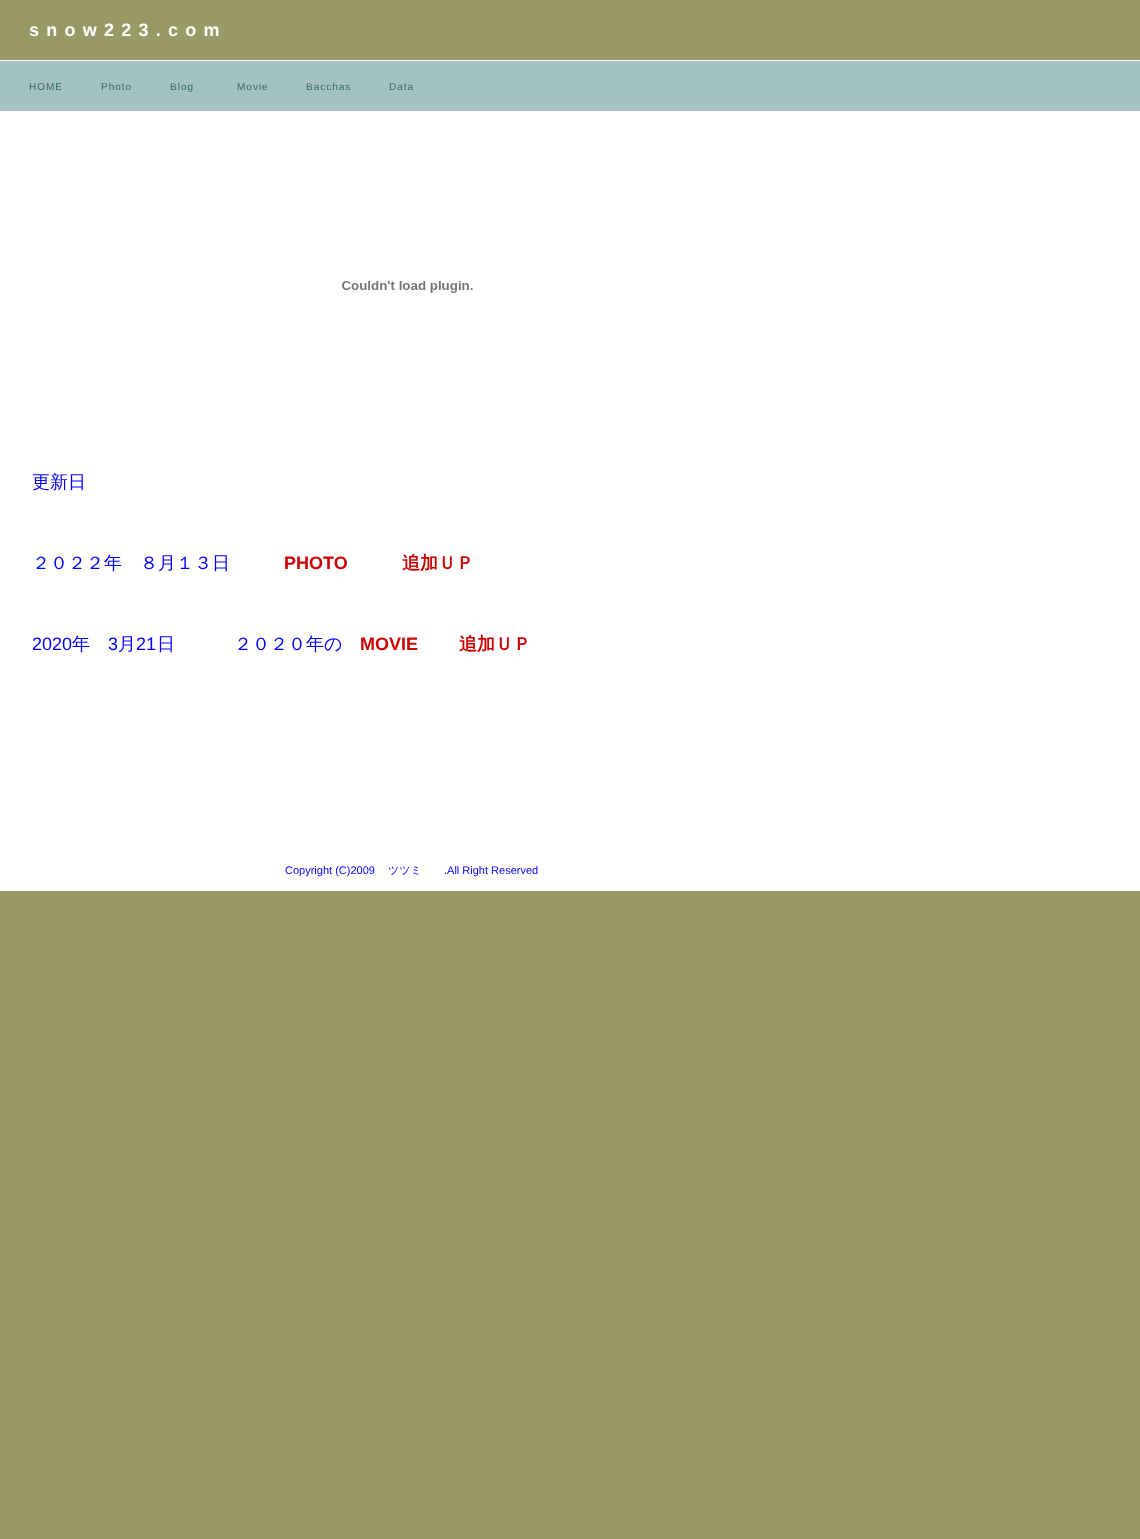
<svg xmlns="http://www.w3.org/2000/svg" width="1140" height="1539">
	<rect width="100%" height="100%" fill="#999966" />
	<text x="29" y="36" font-family="Liberation Sans" font-size="18" font-weight="700" letter-spacing="7.25" fill="#FFFFFF">snow223.com</text>
	<rect x="0" y="60" width="1140" height="1" fill="#FFFFFF" />
	<rect x="0" y="61" width="1140" height="50" fill="#A4C2C2" />
	<g font-family="Liberation Sans" font-size="10" letter-spacing="1" fill="#336666">
		<text x="29" y="90">HOME</text>
		<text x="101" y="90">Photo</text>
		<text x="170" y="90">Blog</text>
		<text x="237" y="90">Movie</text>
		<text x="306" y="90">Bacchas</text>
		<text x="389" y="90">Data</text>
	</g>
	<rect x="0" y="111" width="1140" height="780" fill="#FFFFFF" />
	<image x="342" y="281" width="131" height="12" href="assets/img1.png" />
	<g font-family="WenQuanYi Zen Hei" font-size="18" font-weight="500" fill="#0000FF">
		<text x="32" y="488">更新日</text>
		<text x="32" y="569">２０２２年　８月１３日</text>
	</g>
	<text x="284" y="569" font-family="Liberation Sans" font-size="18" font-weight="700" fill="#CC0000">PHOTO</text>
	<text x="402" y="569" font-family="WenQuanYi Zen Hei" font-size="18" font-weight="700" fill="#CC0000">追加ＵＰ</text>
	<text x="32" y="650" font-family="Liberation Sans" font-size="18" fill="#0000FF">2020</text>
	<text x="72" y="650" font-family="WenQuanYi Zen Hei" font-size="18" font-weight="500" fill="#0000FF">年</text>
	<text x="108" y="650" font-family="Liberation Sans" font-size="18" fill="#0000FF">3</text>
	<text x="118" y="650" font-family="WenQuanYi Zen Hei" font-size="18" font-weight="500" fill="#0000FF">月</text>
	<text x="136" y="650" font-family="Liberation Sans" font-size="18" fill="#0000FF">21</text>
	<g font-family="WenQuanYi Zen Hei" font-size="18" font-weight="500" fill="#0000FF">
		<text x="157" y="650">日</text>
		<text x="234" y="650">２０２０年の</text>
	</g>
	<text x="360" y="650" font-family="Liberation Sans" font-size="18" font-weight="700" fill="#CC0000">MOVIE</text>
	<text x="459" y="650" font-family="WenQuanYi Zen Hei" font-size="18" font-weight="700" fill="#CC0000">追加ＵＰ</text>
	<text x="285" y="874" font-family="Liberation Sans" font-size="11" fill="#0000FF">Copyright (C)2009</text>
	<text x="388" y="874" font-family="WenQuanYi Zen Hei" font-size="11" font-weight="500" fill="#0000FF">ツツミ</text>
	<text x="444" y="874" font-family="Liberation Sans" font-size="11" fill="#0000FF">.All Right Reserved</text>
</svg>
